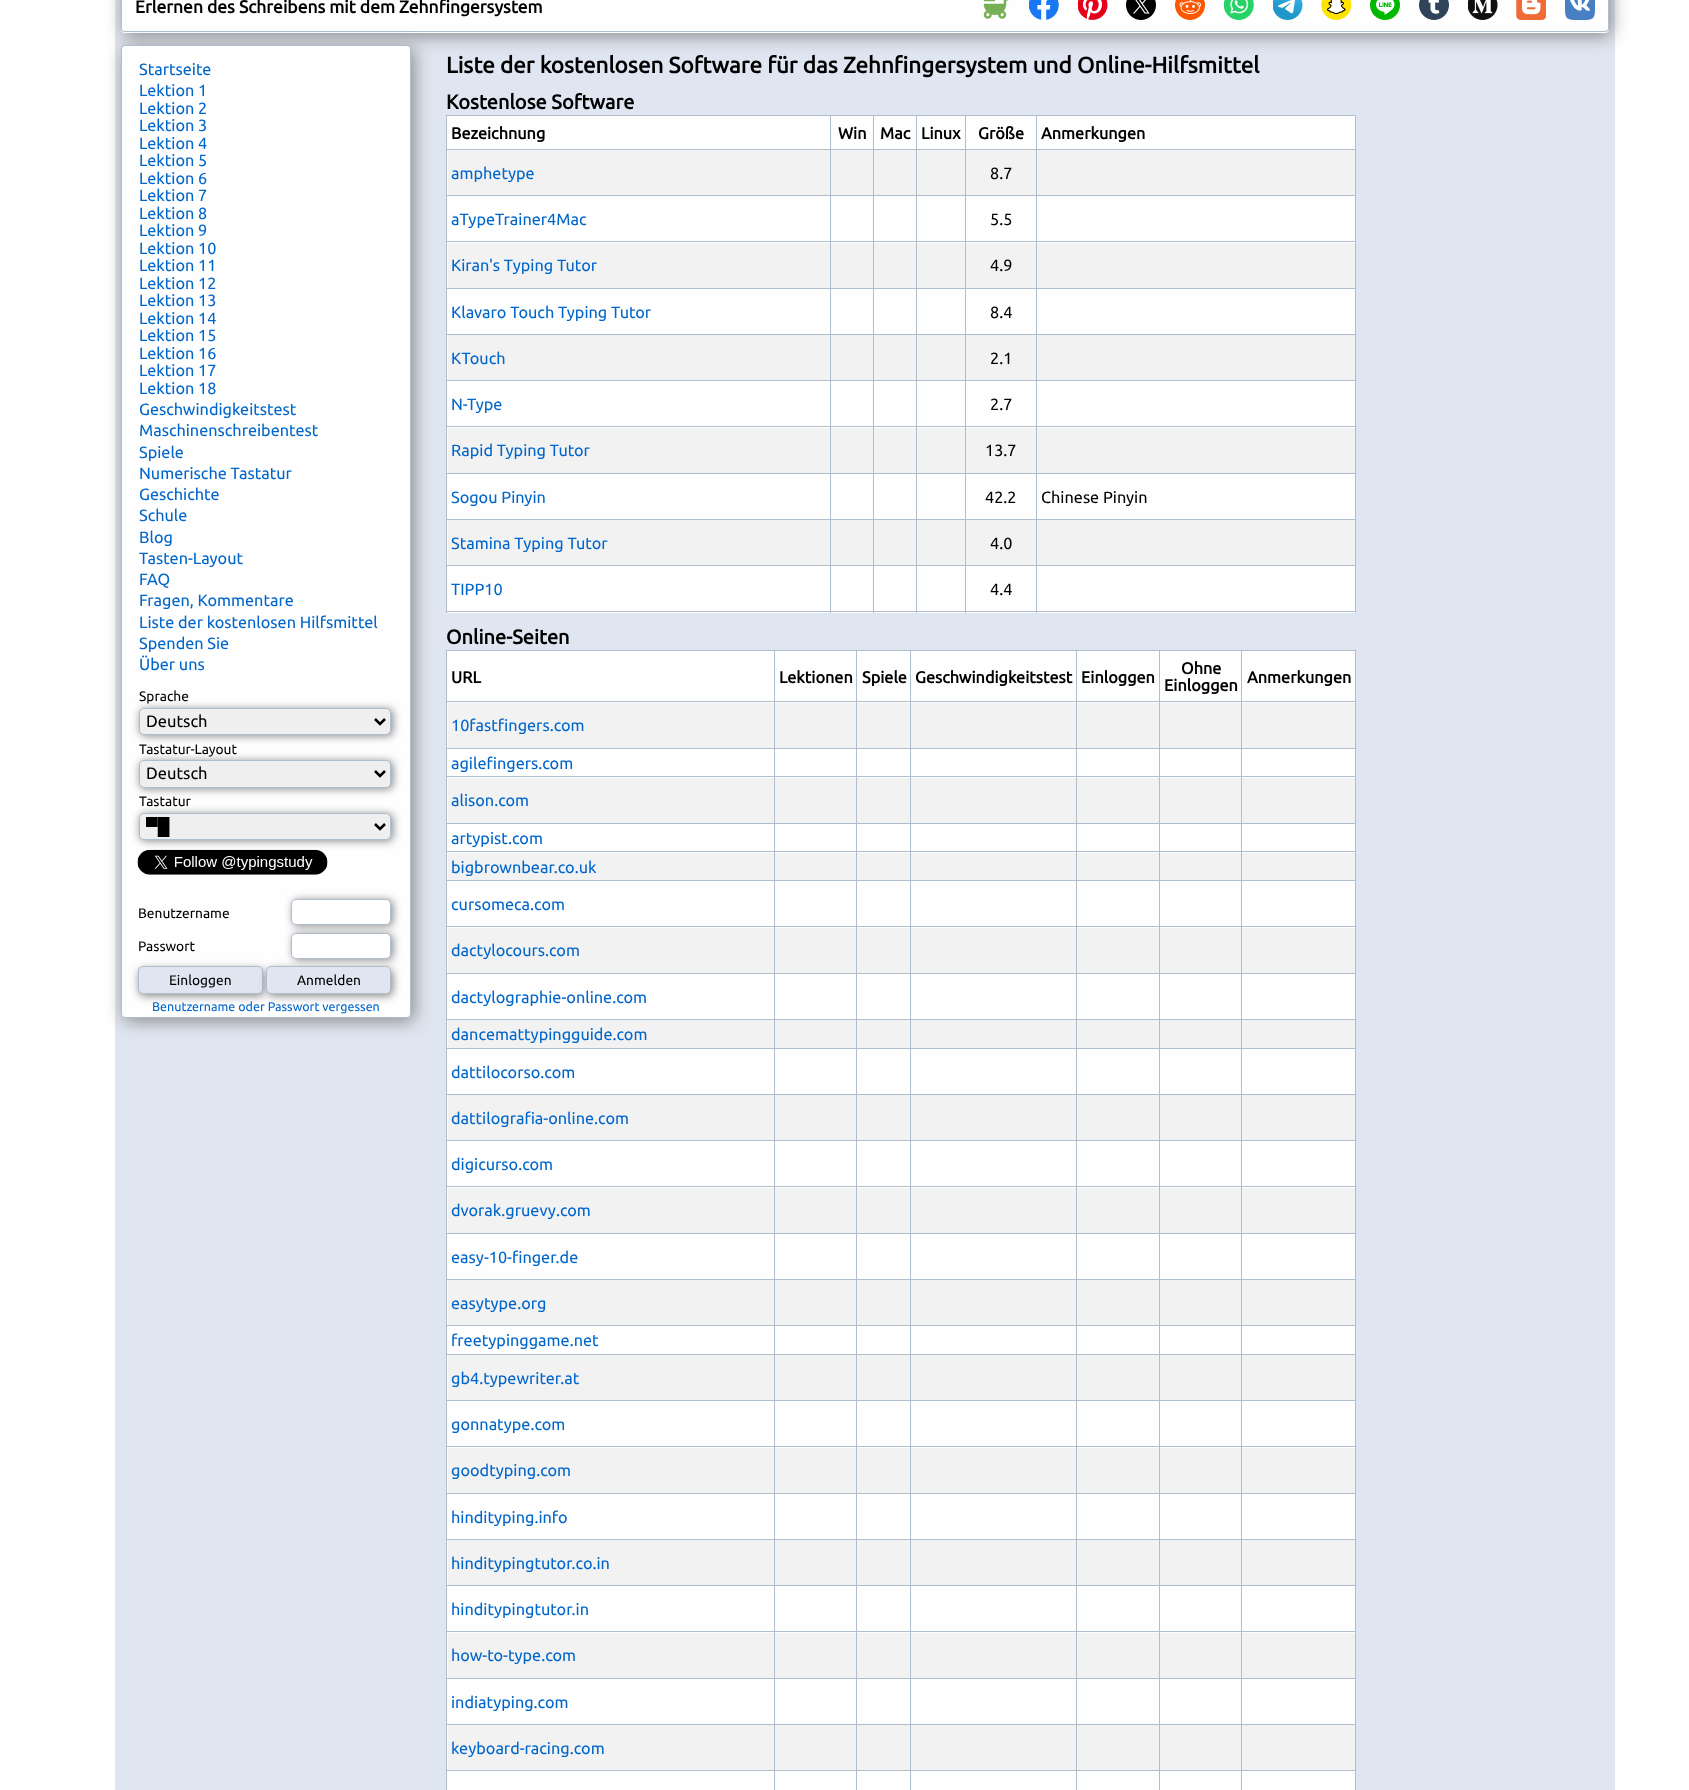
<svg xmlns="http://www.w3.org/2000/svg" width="1689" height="1790">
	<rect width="100%" height="100%" fill="#FFFFFF" />
	<rect x="115" y="0" width="1500" height="1790" fill="#E0E6F1" />
	<rect x="124" y="-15" width="1487" height="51" rx="4" fill="#888888" filter="blur(9px)" />
	<rect x="121" y="-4" width="1488" height="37" rx="4" fill="#FEFEFE" />
	<path d="M125-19H1605C1607-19 1609-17 1609-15V29C1609 31 1607 32 1605 32H125C123 32 121 31 121 29V-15C121-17 123-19 125-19ZM125-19H1605C1606-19 1608-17 1608-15V29C1608 30 1606 31 1605 31H125C124 31 122 30 122 29V-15C122-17 124-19 125-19Z" fill="#B0BDCC" fill-rule="evenodd" />
	<text x="135" y="13" font-family="Ubuntu" font-size="17.5" font-weight="700" fill="#000000">Erlernen des Schreibens mit dem Zehnfingersystem</text>
	<image x="983" y="0" width="26" height="19" href="assets/img1.png" />
	<image x="1029" y="0" width="30" height="20" href="assets/img2.png" />
	<image x="1078" y="0" width="30" height="20" href="assets/img3.png" />
	<image x="1126" y="0" width="30" height="20" href="assets/img4.png" />
	<image x="1175" y="0" width="30" height="20" href="assets/img5.png" />
	<image x="1224" y="0" width="30" height="20" href="assets/img6.png" />
	<image x="1273" y="0" width="30" height="20" href="assets/img7.png" />
	<image x="1321" y="0" width="30" height="20" href="assets/img8.png" />
	<image x="1370" y="0" width="30" height="20" href="assets/img9.png" />
	<image x="1419" y="0" width="30" height="20" href="assets/img10.png" />
	<image x="1468" y="0" width="30" height="20" href="assets/img11.png" />
	<image x="1516" y="0" width="30" height="20" href="assets/img12.png" />
	<image x="1565" y="0" width="30" height="20" href="assets/img13.png" />
	<rect x="124" y="49" width="290" height="972" rx="4" fill="#888888" filter="blur(9px)" />
	<rect x="121.5" y="45.5" width="289" height="972" rx="3.5" fill="#FEFEFE" stroke="#B0BDCC" />
	<g font-family="Ubuntu" font-size="16.25" fill="#0066CC">
		<text x="139" y="75">Startseite</text>
		<text x="139" y="96">Lektion 1</text>
		<text x="139" y="114">Lektion 2</text>
		<text x="139" y="131">Lektion 3</text>
		<text x="139" y="149">Lektion 4</text>
		<text x="139" y="166">Lektion 5</text>
		<text x="139" y="184">Lektion 6</text>
		<text x="139" y="201">Lektion 7</text>
		<text x="139" y="219">Lektion 8</text>
		<text x="139" y="236">Lektion 9</text>
		<text x="139" y="254">Lektion 10</text>
		<text x="139" y="271">Lektion 11</text>
		<text x="139" y="289">Lektion 12</text>
		<text x="139" y="306">Lektion 13</text>
		<text x="139" y="324">Lektion 14</text>
		<text x="139" y="341">Lektion 15</text>
		<text x="139" y="359">Lektion 16</text>
		<text x="139" y="376">Lektion 17</text>
		<text x="139" y="394">Lektion 18</text>
		<text x="139" y="415">Geschwindigkeitstest</text>
		<text x="139" y="436">Maschinenschreibentest</text>
		<text x="139" y="458">Spiele</text>
		<text x="139" y="479">Numerische Tastatur</text>
		<text x="139" y="500">Geschichte</text>
		<text x="139" y="521">Schule</text>
		<text x="139" y="543">Blog</text>
		<text x="139" y="564">Tasten-Layout</text>
		<text x="139" y="585">FAQ</text>
		<text x="139" y="606">Fragen, Kommentare</text>
		<text x="139" y="628">Liste der kostenlosen Hilfsmittel</text>
		<text x="139" y="649">Spenden Sie</text>
		<text x="139" y="670">Über uns</text>
	</g>
	<rect x="140" y="709" width="253" height="27" rx="5" fill="#888888" filter="blur(4px)" />
	<text x="139" y="701" font-family="Ubuntu" font-size="13.75" fill="#000000">Sprache</text>
	<rect x="139.5" y="708.5" width="251" height="26" rx="4.5" fill="#EFEFEF" stroke="#B0BDCC" />
	<path d="M375 719L380 724L385 719" fill="none" stroke="#000000" stroke-width="2.5" />
	<text x="146" y="727" font-family="Ubuntu" font-size="16.5" fill="#000000">Deutsch</text>
	<rect x="140" y="761" width="253" height="28" rx="5" fill="#888888" filter="blur(4px)" />
	<text x="139" y="754" font-family="Ubuntu" font-size="13.75" fill="#000000">Tastatur-Layout</text>
	<rect x="139.5" y="760.5" width="251" height="27" rx="4.5" fill="#EFEFEF" stroke="#B0BDCC" />
	<path d="M375 771L380 776L385 771" fill="none" stroke="#000000" stroke-width="2.5" />
	<text x="146" y="779" font-family="Ubuntu" font-size="16.5" fill="#000000">Deutsch</text>
	<rect x="140" y="814" width="253" height="27" rx="5" fill="#888888" filter="blur(4px)" />
	<text x="139" y="806" font-family="Ubuntu" font-size="13.75" fill="#000000">Tastatur</text>
	<rect x="139.5" y="813.5" width="251" height="26" rx="4.5" fill="#EFEFEF" stroke="#B0BDCC" />
	<path d="M375 824L380 829L385 824" fill="none" stroke="#000000" stroke-width="2.5" />
	<text x="146" y="832" font-family="Liberation Sans" font-size="16.5" fill="#000000">▀█</text>
	<image x="137" y="849" width="191" height="26" href="assets/img14.png" />
	<text x="138" y="918" font-family="Ubuntu" font-size="13.75" fill="#000000">Benutzername</text>
	<rect x="293" y="900" width="100" height="26" rx="5" fill="#888888" filter="blur(4px)" />
	<rect x="291.5" y="899.5" width="99" height="25" rx="4.5" fill="#FFFFFF" stroke="#B0BDCC" />
	<text x="138" y="951" font-family="Ubuntu" font-size="13.75" fill="#000000">Passwort</text>
	<rect x="293" y="934" width="100" height="26" rx="5" fill="#888888" filter="blur(4px)" />
	<rect x="291.5" y="933.5" width="99" height="25" rx="4.5" fill="#FFFFFF" stroke="#B0BDCC" />
	<rect x="139" y="969" width="125" height="27" rx="5" fill="#888888" filter="blur(4px)" />
	<rect x="138.5" y="966.5" width="124" height="27" rx="4.5" fill="#E0E6F1" stroke="#B0BDCC" />
	<text x="169" y="985" font-family="Ubuntu" font-size="13.75" fill="#000000">Einloggen</text>
	<rect x="268" y="969" width="125" height="27" rx="5" fill="#888888" filter="blur(4px)" />
	<rect x="266.5" y="966.5" width="124" height="27" rx="4.5" fill="#E0E6F1" stroke="#B0BDCC" />
	<text x="297" y="985" font-family="Ubuntu" font-size="13.75" fill="#000000">Anmelden</text>
	<text x="152" y="1011" font-family="Ubuntu" font-size="12.5" fill="#0066CC">Benutzername oder Passwort vergessen</text>
	<text x="446" y="73" font-family="Ubuntu" font-size="22.5" font-weight="700" fill="#000000">Liste der kostenlosen Software für das Zehnfingersystem und Online-Hilfsmittel</text>
	<text x="446" y="109" font-family="Ubuntu" font-size="20" font-weight="700" fill="#000000">Kostenlose Software</text>
	<rect x="447" y="116" width="908" height="497" fill="#FEFEFE" />
	<rect x="446" y="115" width="910" height="1" fill="#B0BDCC" />
	<rect x="1355" y="115" width="1" height="498" fill="#B0BDCC" />
	<rect x="446" y="611" width="910" height="1" fill="#B0BDCC" />
	<rect x="446" y="115" width="1" height="498" fill="#B0BDCC" />
	<text x="451" y="139" font-family="Ubuntu" font-size="16.25" font-weight="700" fill="#000000">Bezeichnung</text>
	<rect x="1036" y="149" width="320" height="1" fill="#B0BDCC" />
	<rect x="448" y="150" width="907" height="45" fill="#F2F2F2" />
	<rect x="1036" y="195" width="320" height="1" fill="#B0BDCC" />
	<rect x="1036" y="241" width="320" height="1" fill="#B0BDCC" />
	<rect x="448" y="243" width="907" height="45" fill="#F2F2F2" />
	<rect x="1036" y="288" width="320" height="1" fill="#B0BDCC" />
	<rect x="1036" y="334" width="320" height="1" fill="#B0BDCC" />
	<rect x="448" y="335" width="907" height="45" fill="#F2F2F2" />
	<rect x="1036" y="380" width="320" height="1" fill="#B0BDCC" />
	<rect x="1036" y="426" width="320" height="1" fill="#B0BDCC" />
	<rect x="448" y="428" width="907" height="45" fill="#F2F2F2" />
	<rect x="1036" y="473" width="320" height="1" fill="#B0BDCC" />
	<rect x="1036" y="519" width="320" height="1" fill="#B0BDCC" />
	<rect x="448" y="520" width="907" height="45" fill="#F2F2F2" />
	<rect x="1036" y="565" width="320" height="1" fill="#B0BDCC" />
	<rect x="1036" y="565" width="1" height="48" fill="#B0BDCC" />
	<rect x="965" y="565" width="73" height="1" fill="#B0BDCC" />
	<rect x="1036" y="519" width="1" height="47" fill="#B0BDCC" />
	<rect x="965" y="519" width="73" height="1" fill="#B0BDCC" />
	<rect x="1036" y="473" width="1" height="47" fill="#B0BDCC" />
	<rect x="965" y="473" width="73" height="1" fill="#B0BDCC" />
	<rect x="1036" y="426" width="1" height="48" fill="#B0BDCC" />
	<rect x="965" y="426" width="73" height="1" fill="#B0BDCC" />
	<rect x="1036" y="380" width="1" height="48" fill="#B0BDCC" />
	<rect x="965" y="380" width="73" height="1" fill="#B0BDCC" />
	<rect x="1036" y="334" width="1" height="47" fill="#B0BDCC" />
	<rect x="965" y="334" width="73" height="1" fill="#B0BDCC" />
	<rect x="1036" y="288" width="1" height="47" fill="#B0BDCC" />
	<rect x="965" y="288" width="73" height="1" fill="#B0BDCC" />
	<rect x="1036" y="241" width="1" height="48" fill="#B0BDCC" />
	<rect x="965" y="241" width="73" height="1" fill="#B0BDCC" />
	<rect x="1036" y="195" width="1" height="48" fill="#B0BDCC" />
	<rect x="965" y="195" width="73" height="1" fill="#B0BDCC" />
	<rect x="1036" y="149" width="1" height="47" fill="#B0BDCC" />
	<rect x="965" y="149" width="73" height="1" fill="#B0BDCC" />
	<rect x="965" y="565" width="1" height="48" fill="#B0BDCC" />
	<rect x="916" y="565" width="50" height="1" fill="#B0BDCC" />
	<rect x="965" y="519" width="1" height="47" fill="#B0BDCC" />
	<rect x="916" y="519" width="50" height="1" fill="#B0BDCC" />
	<rect x="965" y="473" width="1" height="47" fill="#B0BDCC" />
	<rect x="916" y="473" width="50" height="1" fill="#B0BDCC" />
	<rect x="965" y="426" width="1" height="48" fill="#B0BDCC" />
	<rect x="916" y="426" width="50" height="1" fill="#B0BDCC" />
	<rect x="965" y="380" width="1" height="48" fill="#B0BDCC" />
	<rect x="916" y="380" width="50" height="1" fill="#B0BDCC" />
	<rect x="965" y="334" width="1" height="47" fill="#B0BDCC" />
	<rect x="916" y="334" width="50" height="1" fill="#B0BDCC" />
	<rect x="965" y="288" width="1" height="47" fill="#B0BDCC" />
	<rect x="916" y="288" width="50" height="1" fill="#B0BDCC" />
	<rect x="965" y="241" width="1" height="48" fill="#B0BDCC" />
	<rect x="916" y="241" width="50" height="1" fill="#B0BDCC" />
	<rect x="965" y="195" width="1" height="48" fill="#B0BDCC" />
	<rect x="916" y="195" width="50" height="1" fill="#B0BDCC" />
	<rect x="965" y="149" width="1" height="47" fill="#B0BDCC" />
	<rect x="916" y="149" width="50" height="1" fill="#B0BDCC" />
	<rect x="916" y="565" width="1" height="48" fill="#B0BDCC" />
	<rect x="873" y="565" width="45" height="1" fill="#B0BDCC" />
	<rect x="916" y="519" width="1" height="47" fill="#B0BDCC" />
	<rect x="873" y="519" width="45" height="1" fill="#B0BDCC" />
	<rect x="916" y="473" width="1" height="47" fill="#B0BDCC" />
	<rect x="873" y="473" width="45" height="1" fill="#B0BDCC" />
	<rect x="916" y="426" width="1" height="48" fill="#B0BDCC" />
	<rect x="873" y="426" width="45" height="1" fill="#B0BDCC" />
	<rect x="916" y="380" width="1" height="48" fill="#B0BDCC" />
	<rect x="873" y="380" width="45" height="1" fill="#B0BDCC" />
	<rect x="916" y="334" width="1" height="47" fill="#B0BDCC" />
	<rect x="873" y="334" width="45" height="1" fill="#B0BDCC" />
	<rect x="916" y="288" width="1" height="47" fill="#B0BDCC" />
	<rect x="873" y="288" width="45" height="1" fill="#B0BDCC" />
	<rect x="916" y="241" width="1" height="48" fill="#B0BDCC" />
	<rect x="873" y="241" width="45" height="1" fill="#B0BDCC" />
	<rect x="916" y="195" width="1" height="48" fill="#B0BDCC" />
	<rect x="873" y="195" width="45" height="1" fill="#B0BDCC" />
	<rect x="916" y="149" width="1" height="47" fill="#B0BDCC" />
	<rect x="873" y="149" width="45" height="1" fill="#B0BDCC" />
	<rect x="873" y="565" width="1" height="48" fill="#B0BDCC" />
	<rect x="830" y="565" width="44" height="1" fill="#B0BDCC" />
	<rect x="873" y="519" width="1" height="47" fill="#B0BDCC" />
	<rect x="830" y="519" width="44" height="1" fill="#B0BDCC" />
	<rect x="873" y="473" width="1" height="47" fill="#B0BDCC" />
	<rect x="830" y="473" width="44" height="1" fill="#B0BDCC" />
	<rect x="873" y="426" width="1" height="48" fill="#B0BDCC" />
	<rect x="830" y="426" width="44" height="1" fill="#B0BDCC" />
	<rect x="873" y="380" width="1" height="48" fill="#B0BDCC" />
	<rect x="830" y="380" width="44" height="1" fill="#B0BDCC" />
	<rect x="873" y="334" width="1" height="47" fill="#B0BDCC" />
	<rect x="830" y="334" width="44" height="1" fill="#B0BDCC" />
	<rect x="873" y="288" width="1" height="47" fill="#B0BDCC" />
	<rect x="830" y="288" width="44" height="1" fill="#B0BDCC" />
	<rect x="873" y="241" width="1" height="48" fill="#B0BDCC" />
	<rect x="830" y="241" width="44" height="1" fill="#B0BDCC" />
	<rect x="873" y="195" width="1" height="48" fill="#B0BDCC" />
	<rect x="830" y="195" width="44" height="1" fill="#B0BDCC" />
	<rect x="873" y="149" width="1" height="47" fill="#B0BDCC" />
	<rect x="830" y="149" width="44" height="1" fill="#B0BDCC" />
	<rect x="830" y="565" width="1" height="48" fill="#B0BDCC" />
	<rect x="446" y="565" width="385" height="1" fill="#B0BDCC" />
	<rect x="830" y="519" width="1" height="47" fill="#B0BDCC" />
	<rect x="446" y="519" width="385" height="1" fill="#B0BDCC" />
	<rect x="830" y="473" width="1" height="47" fill="#B0BDCC" />
	<rect x="446" y="473" width="385" height="1" fill="#B0BDCC" />
	<rect x="830" y="426" width="1" height="48" fill="#B0BDCC" />
	<rect x="446" y="426" width="385" height="1" fill="#B0BDCC" />
	<rect x="830" y="380" width="1" height="48" fill="#B0BDCC" />
	<rect x="446" y="380" width="385" height="1" fill="#B0BDCC" />
	<rect x="830" y="334" width="1" height="47" fill="#B0BDCC" />
	<rect x="446" y="334" width="385" height="1" fill="#B0BDCC" />
	<rect x="830" y="288" width="1" height="47" fill="#B0BDCC" />
	<rect x="446" y="288" width="385" height="1" fill="#B0BDCC" />
	<rect x="830" y="241" width="1" height="48" fill="#B0BDCC" />
	<rect x="446" y="241" width="385" height="1" fill="#B0BDCC" />
	<rect x="830" y="195" width="1" height="48" fill="#B0BDCC" />
	<rect x="446" y="195" width="385" height="1" fill="#B0BDCC" />
	<rect x="830" y="149" width="1" height="47" fill="#B0BDCC" />
	<rect x="446" y="149" width="385" height="1" fill="#B0BDCC" />
	<rect x="830" y="115" width="1" height="35" fill="#B0BDCC" />
	<text x="838" y="139" font-family="Ubuntu" font-size="16.25" font-weight="700" fill="#000000">Win</text>
	<rect x="873" y="115" width="1" height="35" fill="#B0BDCC" />
	<text x="880" y="139" font-family="Ubuntu" font-size="16.25" font-weight="700" fill="#000000">Mac</text>
	<rect x="916" y="115" width="1" height="35" fill="#B0BDCC" />
	<text x="921" y="139" font-family="Ubuntu" font-size="16.25" font-weight="700" fill="#000000">Linux</text>
	<rect x="965" y="115" width="1" height="35" fill="#B0BDCC" />
	<text x="978" y="139" font-family="Ubuntu" font-size="16.25" font-weight="700" fill="#000000">Größe</text>
	<rect x="1036" y="115" width="1" height="35" fill="#B0BDCC" />
	<text x="1041" y="139" font-family="Ubuntu" font-size="16.25" font-weight="700" fill="#000000">Anmerkungen</text>
	<text x="451" y="179" font-family="Ubuntu" font-size="16.25" fill="#0066CC">amphetype</text>
	<text x="990" y="179" font-family="Ubuntu" font-size="16.25" fill="#000000">8.7</text>
	<text x="451" y="225" font-family="Ubuntu" font-size="16.25" fill="#0066CC">aTypeTrainer4Mac</text>
	<text x="990" y="225" font-family="Ubuntu" font-size="16.25" fill="#000000">5.5</text>
	<text x="451" y="271" font-family="Ubuntu" font-size="16.25" fill="#0066CC">Kiran's Typing Tutor</text>
	<text x="990" y="271" font-family="Ubuntu" font-size="16.25" fill="#000000">4.9</text>
	<text x="451" y="318" font-family="Ubuntu" font-size="16.25" fill="#0066CC">Klavaro Touch Typing Tutor</text>
	<text x="990" y="318" font-family="Ubuntu" font-size="16.25" fill="#000000">8.4</text>
	<text x="451" y="364" font-family="Ubuntu" font-size="16.25" fill="#0066CC">KTouch</text>
	<text x="990" y="364" font-family="Ubuntu" font-size="16.25" fill="#000000">2.1</text>
	<text x="451" y="410" font-family="Ubuntu" font-size="16.25" fill="#0066CC">N-Type</text>
	<text x="990" y="410" font-family="Ubuntu" font-size="16.25" fill="#000000">2.7</text>
	<text x="451" y="456" font-family="Ubuntu" font-size="16.25" fill="#0066CC">Rapid Typing Tutor</text>
	<text x="985" y="456" font-family="Ubuntu" font-size="16.25" fill="#000000">13.7</text>
	<text x="451" y="503" font-family="Ubuntu" font-size="16.25" fill="#0066CC">Sogou Pinyin</text>
	<g font-family="Ubuntu" font-size="16.25" fill="#000000">
		<text x="985" y="503">42.2</text>
		<text x="1041" y="503">Chinese Pinyin</text>
	</g>
	<text x="451" y="549" font-family="Ubuntu" font-size="16.25" fill="#0066CC">Stamina Typing Tutor</text>
	<text x="990" y="549" font-family="Ubuntu" font-size="16.25" fill="#000000">4.0</text>
	<text x="451" y="595" font-family="Ubuntu" font-size="16.25" fill="#0066CC">TIPP10</text>
	<text x="990" y="595" font-family="Ubuntu" font-size="16.25" fill="#000000">4.4</text>
	<text x="446" y="644" font-family="Ubuntu" font-size="20" font-weight="700" fill="#000000">Online-Seiten</text>
	<rect x="447" y="651" width="908" height="1139" fill="#FEFEFE" />
	<rect x="446" y="650" width="910" height="1" fill="#B0BDCC" />
	<rect x="1355" y="650" width="1" height="1140" fill="#B0BDCC" />
	<rect x="446" y="650" width="1" height="1140" fill="#B0BDCC" />
	<text x="451" y="683" font-family="Ubuntu" font-size="16.25" font-weight="700" fill="#000000">URL</text>
	<rect x="1241" y="701" width="115" height="1" fill="#B0BDCC" />
	<rect x="448" y="703" width="907" height="45" fill="#F2F2F2" />
	<rect x="1241" y="748" width="115" height="1" fill="#B0BDCC" />
	<rect x="1241" y="776" width="115" height="1" fill="#B0BDCC" />
	<rect x="448" y="778" width="907" height="45" fill="#F2F2F2" />
	<rect x="1241" y="823" width="115" height="1" fill="#B0BDCC" />
	<rect x="1241" y="851" width="115" height="1" fill="#B0BDCC" />
	<rect x="448" y="853" width="907" height="27" fill="#F2F2F2" />
	<rect x="1241" y="880" width="115" height="1" fill="#B0BDCC" />
	<rect x="1241" y="926" width="115" height="1" fill="#B0BDCC" />
	<rect x="448" y="928" width="907" height="45" fill="#F2F2F2" />
	<rect x="1241" y="973" width="115" height="1" fill="#B0BDCC" />
	<rect x="1241" y="1019" width="115" height="1" fill="#B0BDCC" />
	<rect x="448" y="1020" width="907" height="28" fill="#F2F2F2" />
	<rect x="1241" y="1048" width="115" height="1" fill="#B0BDCC" />
	<rect x="1241" y="1094" width="115" height="1" fill="#B0BDCC" />
	<rect x="448" y="1095" width="907" height="45" fill="#F2F2F2" />
	<rect x="1241" y="1140" width="115" height="1" fill="#B0BDCC" />
	<rect x="1241" y="1186" width="115" height="1" fill="#B0BDCC" />
	<rect x="448" y="1188" width="907" height="45" fill="#F2F2F2" />
	<rect x="1241" y="1233" width="115" height="1" fill="#B0BDCC" />
	<rect x="1241" y="1279" width="115" height="1" fill="#B0BDCC" />
	<rect x="448" y="1280" width="907" height="45" fill="#F2F2F2" />
	<rect x="1241" y="1325" width="115" height="1" fill="#B0BDCC" />
	<rect x="1241" y="1354" width="115" height="1" fill="#B0BDCC" />
	<rect x="448" y="1355" width="907" height="45" fill="#F2F2F2" />
	<rect x="1241" y="1400" width="115" height="1" fill="#B0BDCC" />
	<rect x="1241" y="1446" width="115" height="1" fill="#B0BDCC" />
	<rect x="448" y="1448" width="907" height="45" fill="#F2F2F2" />
	<rect x="1241" y="1493" width="115" height="1" fill="#B0BDCC" />
	<rect x="1241" y="1539" width="115" height="1" fill="#B0BDCC" />
	<rect x="448" y="1540" width="907" height="45" fill="#F2F2F2" />
	<rect x="1241" y="1585" width="115" height="1" fill="#B0BDCC" />
	<rect x="1241" y="1631" width="115" height="1" fill="#B0BDCC" />
	<rect x="448" y="1633" width="907" height="45" fill="#F2F2F2" />
	<rect x="1241" y="1678" width="115" height="1" fill="#B0BDCC" />
	<rect x="1241" y="1724" width="115" height="1" fill="#B0BDCC" />
	<rect x="448" y="1725" width="907" height="45" fill="#F2F2F2" />
	<rect x="1241" y="1770" width="115" height="1" fill="#B0BDCC" />
	<rect x="1241" y="1770" width="1" height="20" fill="#B0BDCC" />
	<rect x="1159" y="1770" width="84" height="1" fill="#B0BDCC" />
	<rect x="1241" y="1724" width="1" height="47" fill="#B0BDCC" />
	<rect x="1159" y="1724" width="84" height="1" fill="#B0BDCC" />
	<rect x="1241" y="1678" width="1" height="47" fill="#B0BDCC" />
	<rect x="1159" y="1678" width="84" height="1" fill="#B0BDCC" />
	<rect x="1241" y="1631" width="1" height="48" fill="#B0BDCC" />
	<rect x="1159" y="1631" width="84" height="1" fill="#B0BDCC" />
	<rect x="1241" y="1585" width="1" height="48" fill="#B0BDCC" />
	<rect x="1159" y="1585" width="84" height="1" fill="#B0BDCC" />
	<rect x="1241" y="1539" width="1" height="47" fill="#B0BDCC" />
	<rect x="1159" y="1539" width="84" height="1" fill="#B0BDCC" />
	<rect x="1241" y="1493" width="1" height="47" fill="#B0BDCC" />
	<rect x="1159" y="1493" width="84" height="1" fill="#B0BDCC" />
	<rect x="1241" y="1446" width="1" height="48" fill="#B0BDCC" />
	<rect x="1159" y="1446" width="84" height="1" fill="#B0BDCC" />
	<rect x="1241" y="1400" width="1" height="48" fill="#B0BDCC" />
	<rect x="1159" y="1400" width="84" height="1" fill="#B0BDCC" />
	<rect x="1241" y="1354" width="1" height="47" fill="#B0BDCC" />
	<rect x="1159" y="1354" width="84" height="1" fill="#B0BDCC" />
	<rect x="1241" y="1325" width="1" height="30" fill="#B0BDCC" />
	<rect x="1159" y="1325" width="84" height="1" fill="#B0BDCC" />
	<rect x="1241" y="1279" width="1" height="47" fill="#B0BDCC" />
	<rect x="1159" y="1279" width="84" height="1" fill="#B0BDCC" />
	<rect x="1241" y="1233" width="1" height="47" fill="#B0BDCC" />
	<rect x="1159" y="1233" width="84" height="1" fill="#B0BDCC" />
	<rect x="1241" y="1186" width="1" height="48" fill="#B0BDCC" />
	<rect x="1159" y="1186" width="84" height="1" fill="#B0BDCC" />
	<rect x="1241" y="1140" width="1" height="48" fill="#B0BDCC" />
	<rect x="1159" y="1140" width="84" height="1" fill="#B0BDCC" />
	<rect x="1241" y="1094" width="1" height="47" fill="#B0BDCC" />
	<rect x="1159" y="1094" width="84" height="1" fill="#B0BDCC" />
	<rect x="1241" y="1048" width="1" height="47" fill="#B0BDCC" />
	<rect x="1159" y="1048" width="84" height="1" fill="#B0BDCC" />
	<rect x="1241" y="1019" width="1" height="30" fill="#B0BDCC" />
	<rect x="1159" y="1019" width="84" height="1" fill="#B0BDCC" />
	<rect x="1241" y="973" width="1" height="47" fill="#B0BDCC" />
	<rect x="1159" y="973" width="84" height="1" fill="#B0BDCC" />
	<rect x="1241" y="926" width="1" height="48" fill="#B0BDCC" />
	<rect x="1159" y="926" width="84" height="1" fill="#B0BDCC" />
	<rect x="1241" y="880" width="1" height="48" fill="#B0BDCC" />
	<rect x="1159" y="880" width="84" height="1" fill="#B0BDCC" />
	<rect x="1241" y="851" width="1" height="30" fill="#B0BDCC" />
	<rect x="1159" y="851" width="84" height="1" fill="#B0BDCC" />
	<rect x="1241" y="823" width="1" height="30" fill="#B0BDCC" />
	<rect x="1159" y="823" width="84" height="1" fill="#B0BDCC" />
	<rect x="1241" y="776" width="1" height="48" fill="#B0BDCC" />
	<rect x="1159" y="776" width="84" height="1" fill="#B0BDCC" />
	<rect x="1241" y="748" width="1" height="30" fill="#B0BDCC" />
	<rect x="1159" y="748" width="84" height="1" fill="#B0BDCC" />
	<rect x="1241" y="701" width="1" height="48" fill="#B0BDCC" />
	<rect x="1159" y="701" width="84" height="1" fill="#B0BDCC" />
	<rect x="1159" y="1770" width="1" height="20" fill="#B0BDCC" />
	<rect x="1076" y="1770" width="84" height="1" fill="#B0BDCC" />
	<rect x="1159" y="1724" width="1" height="47" fill="#B0BDCC" />
	<rect x="1076" y="1724" width="84" height="1" fill="#B0BDCC" />
	<rect x="1159" y="1678" width="1" height="47" fill="#B0BDCC" />
	<rect x="1076" y="1678" width="84" height="1" fill="#B0BDCC" />
	<rect x="1159" y="1631" width="1" height="48" fill="#B0BDCC" />
	<rect x="1076" y="1631" width="84" height="1" fill="#B0BDCC" />
	<rect x="1159" y="1585" width="1" height="48" fill="#B0BDCC" />
	<rect x="1076" y="1585" width="84" height="1" fill="#B0BDCC" />
	<rect x="1159" y="1539" width="1" height="47" fill="#B0BDCC" />
	<rect x="1076" y="1539" width="84" height="1" fill="#B0BDCC" />
	<rect x="1159" y="1493" width="1" height="47" fill="#B0BDCC" />
	<rect x="1076" y="1493" width="84" height="1" fill="#B0BDCC" />
	<rect x="1159" y="1446" width="1" height="48" fill="#B0BDCC" />
	<rect x="1076" y="1446" width="84" height="1" fill="#B0BDCC" />
	<rect x="1159" y="1400" width="1" height="48" fill="#B0BDCC" />
	<rect x="1076" y="1400" width="84" height="1" fill="#B0BDCC" />
	<rect x="1159" y="1354" width="1" height="47" fill="#B0BDCC" />
	<rect x="1076" y="1354" width="84" height="1" fill="#B0BDCC" />
	<rect x="1159" y="1325" width="1" height="30" fill="#B0BDCC" />
	<rect x="1076" y="1325" width="84" height="1" fill="#B0BDCC" />
	<rect x="1159" y="1279" width="1" height="47" fill="#B0BDCC" />
	<rect x="1076" y="1279" width="84" height="1" fill="#B0BDCC" />
	<rect x="1159" y="1233" width="1" height="47" fill="#B0BDCC" />
	<rect x="1076" y="1233" width="84" height="1" fill="#B0BDCC" />
	<rect x="1159" y="1186" width="1" height="48" fill="#B0BDCC" />
	<rect x="1076" y="1186" width="84" height="1" fill="#B0BDCC" />
	<rect x="1159" y="1140" width="1" height="48" fill="#B0BDCC" />
	<rect x="1076" y="1140" width="84" height="1" fill="#B0BDCC" />
	<rect x="1159" y="1094" width="1" height="47" fill="#B0BDCC" />
	<rect x="1076" y="1094" width="84" height="1" fill="#B0BDCC" />
	<rect x="1159" y="1048" width="1" height="47" fill="#B0BDCC" />
	<rect x="1076" y="1048" width="84" height="1" fill="#B0BDCC" />
	<rect x="1159" y="1019" width="1" height="30" fill="#B0BDCC" />
	<rect x="1076" y="1019" width="84" height="1" fill="#B0BDCC" />
	<rect x="1159" y="973" width="1" height="47" fill="#B0BDCC" />
	<rect x="1076" y="973" width="84" height="1" fill="#B0BDCC" />
	<rect x="1159" y="926" width="1" height="48" fill="#B0BDCC" />
	<rect x="1076" y="926" width="84" height="1" fill="#B0BDCC" />
	<rect x="1159" y="880" width="1" height="48" fill="#B0BDCC" />
	<rect x="1076" y="880" width="84" height="1" fill="#B0BDCC" />
	<rect x="1159" y="851" width="1" height="30" fill="#B0BDCC" />
	<rect x="1076" y="851" width="84" height="1" fill="#B0BDCC" />
	<rect x="1159" y="823" width="1" height="30" fill="#B0BDCC" />
	<rect x="1076" y="823" width="84" height="1" fill="#B0BDCC" />
	<rect x="1159" y="776" width="1" height="48" fill="#B0BDCC" />
	<rect x="1076" y="776" width="84" height="1" fill="#B0BDCC" />
	<rect x="1159" y="748" width="1" height="30" fill="#B0BDCC" />
	<rect x="1076" y="748" width="84" height="1" fill="#B0BDCC" />
	<rect x="1159" y="701" width="1" height="48" fill="#B0BDCC" />
	<rect x="1076" y="701" width="84" height="1" fill="#B0BDCC" />
	<rect x="1076" y="1770" width="1" height="20" fill="#B0BDCC" />
	<rect x="910" y="1770" width="168" height="1" fill="#B0BDCC" />
	<rect x="1076" y="1724" width="1" height="47" fill="#B0BDCC" />
	<rect x="910" y="1724" width="168" height="1" fill="#B0BDCC" />
	<rect x="1076" y="1678" width="1" height="47" fill="#B0BDCC" />
	<rect x="910" y="1678" width="168" height="1" fill="#B0BDCC" />
	<rect x="1076" y="1631" width="1" height="48" fill="#B0BDCC" />
	<rect x="910" y="1631" width="168" height="1" fill="#B0BDCC" />
	<rect x="1076" y="1585" width="1" height="48" fill="#B0BDCC" />
	<rect x="910" y="1585" width="168" height="1" fill="#B0BDCC" />
	<rect x="1076" y="1539" width="1" height="47" fill="#B0BDCC" />
	<rect x="910" y="1539" width="168" height="1" fill="#B0BDCC" />
	<rect x="1076" y="1493" width="1" height="47" fill="#B0BDCC" />
	<rect x="910" y="1493" width="168" height="1" fill="#B0BDCC" />
	<rect x="1076" y="1446" width="1" height="48" fill="#B0BDCC" />
	<rect x="910" y="1446" width="168" height="1" fill="#B0BDCC" />
	<rect x="1076" y="1400" width="1" height="48" fill="#B0BDCC" />
	<rect x="910" y="1400" width="168" height="1" fill="#B0BDCC" />
	<rect x="1076" y="1354" width="1" height="47" fill="#B0BDCC" />
	<rect x="910" y="1354" width="168" height="1" fill="#B0BDCC" />
	<rect x="1076" y="1325" width="1" height="30" fill="#B0BDCC" />
	<rect x="910" y="1325" width="168" height="1" fill="#B0BDCC" />
	<rect x="1076" y="1279" width="1" height="47" fill="#B0BDCC" />
	<rect x="910" y="1279" width="168" height="1" fill="#B0BDCC" />
	<rect x="1076" y="1233" width="1" height="47" fill="#B0BDCC" />
	<rect x="910" y="1233" width="168" height="1" fill="#B0BDCC" />
	<rect x="1076" y="1186" width="1" height="48" fill="#B0BDCC" />
	<rect x="910" y="1186" width="168" height="1" fill="#B0BDCC" />
	<rect x="1076" y="1140" width="1" height="48" fill="#B0BDCC" />
	<rect x="910" y="1140" width="168" height="1" fill="#B0BDCC" />
	<rect x="1076" y="1094" width="1" height="47" fill="#B0BDCC" />
	<rect x="910" y="1094" width="168" height="1" fill="#B0BDCC" />
	<rect x="1076" y="1048" width="1" height="47" fill="#B0BDCC" />
	<rect x="910" y="1048" width="168" height="1" fill="#B0BDCC" />
	<rect x="1076" y="1019" width="1" height="30" fill="#B0BDCC" />
	<rect x="910" y="1019" width="168" height="1" fill="#B0BDCC" />
	<rect x="1076" y="973" width="1" height="47" fill="#B0BDCC" />
	<rect x="910" y="973" width="168" height="1" fill="#B0BDCC" />
	<rect x="1076" y="926" width="1" height="48" fill="#B0BDCC" />
	<rect x="910" y="926" width="168" height="1" fill="#B0BDCC" />
	<rect x="1076" y="880" width="1" height="48" fill="#B0BDCC" />
	<rect x="910" y="880" width="168" height="1" fill="#B0BDCC" />
	<rect x="1076" y="851" width="1" height="30" fill="#B0BDCC" />
	<rect x="910" y="851" width="168" height="1" fill="#B0BDCC" />
	<rect x="1076" y="823" width="1" height="30" fill="#B0BDCC" />
	<rect x="910" y="823" width="168" height="1" fill="#B0BDCC" />
	<rect x="1076" y="776" width="1" height="48" fill="#B0BDCC" />
	<rect x="910" y="776" width="168" height="1" fill="#B0BDCC" />
	<rect x="1076" y="748" width="1" height="30" fill="#B0BDCC" />
	<rect x="910" y="748" width="168" height="1" fill="#B0BDCC" />
	<rect x="1076" y="701" width="1" height="48" fill="#B0BDCC" />
	<rect x="910" y="701" width="168" height="1" fill="#B0BDCC" />
	<rect x="910" y="1770" width="1" height="20" fill="#B0BDCC" />
	<rect x="856" y="1770" width="55" height="1" fill="#B0BDCC" />
	<rect x="910" y="1724" width="1" height="47" fill="#B0BDCC" />
	<rect x="856" y="1724" width="55" height="1" fill="#B0BDCC" />
	<rect x="910" y="1678" width="1" height="47" fill="#B0BDCC" />
	<rect x="856" y="1678" width="55" height="1" fill="#B0BDCC" />
	<rect x="910" y="1631" width="1" height="48" fill="#B0BDCC" />
	<rect x="856" y="1631" width="55" height="1" fill="#B0BDCC" />
	<rect x="910" y="1585" width="1" height="48" fill="#B0BDCC" />
	<rect x="856" y="1585" width="55" height="1" fill="#B0BDCC" />
	<rect x="910" y="1539" width="1" height="47" fill="#B0BDCC" />
	<rect x="856" y="1539" width="55" height="1" fill="#B0BDCC" />
	<rect x="910" y="1493" width="1" height="47" fill="#B0BDCC" />
	<rect x="856" y="1493" width="55" height="1" fill="#B0BDCC" />
	<rect x="910" y="1446" width="1" height="48" fill="#B0BDCC" />
	<rect x="856" y="1446" width="55" height="1" fill="#B0BDCC" />
	<rect x="910" y="1400" width="1" height="48" fill="#B0BDCC" />
	<rect x="856" y="1400" width="55" height="1" fill="#B0BDCC" />
	<rect x="910" y="1354" width="1" height="47" fill="#B0BDCC" />
	<rect x="856" y="1354" width="55" height="1" fill="#B0BDCC" />
	<rect x="910" y="1325" width="1" height="30" fill="#B0BDCC" />
	<rect x="856" y="1325" width="55" height="1" fill="#B0BDCC" />
	<rect x="910" y="1279" width="1" height="47" fill="#B0BDCC" />
	<rect x="856" y="1279" width="55" height="1" fill="#B0BDCC" />
	<rect x="910" y="1233" width="1" height="47" fill="#B0BDCC" />
	<rect x="856" y="1233" width="55" height="1" fill="#B0BDCC" />
	<rect x="910" y="1186" width="1" height="48" fill="#B0BDCC" />
	<rect x="856" y="1186" width="55" height="1" fill="#B0BDCC" />
	<rect x="910" y="1140" width="1" height="48" fill="#B0BDCC" />
	<rect x="856" y="1140" width="55" height="1" fill="#B0BDCC" />
	<rect x="910" y="1094" width="1" height="47" fill="#B0BDCC" />
	<rect x="856" y="1094" width="55" height="1" fill="#B0BDCC" />
	<rect x="910" y="1048" width="1" height="47" fill="#B0BDCC" />
	<rect x="856" y="1048" width="55" height="1" fill="#B0BDCC" />
	<rect x="910" y="1019" width="1" height="30" fill="#B0BDCC" />
	<rect x="856" y="1019" width="55" height="1" fill="#B0BDCC" />
	<rect x="910" y="973" width="1" height="47" fill="#B0BDCC" />
	<rect x="856" y="973" width="55" height="1" fill="#B0BDCC" />
	<rect x="910" y="926" width="1" height="48" fill="#B0BDCC" />
	<rect x="856" y="926" width="55" height="1" fill="#B0BDCC" />
	<rect x="910" y="880" width="1" height="48" fill="#B0BDCC" />
	<rect x="856" y="880" width="55" height="1" fill="#B0BDCC" />
	<rect x="910" y="851" width="1" height="30" fill="#B0BDCC" />
	<rect x="856" y="851" width="55" height="1" fill="#B0BDCC" />
	<rect x="910" y="823" width="1" height="30" fill="#B0BDCC" />
	<rect x="856" y="823" width="55" height="1" fill="#B0BDCC" />
	<rect x="910" y="776" width="1" height="48" fill="#B0BDCC" />
	<rect x="856" y="776" width="55" height="1" fill="#B0BDCC" />
	<rect x="910" y="748" width="1" height="30" fill="#B0BDCC" />
	<rect x="856" y="748" width="55" height="1" fill="#B0BDCC" />
	<rect x="910" y="701" width="1" height="48" fill="#B0BDCC" />
	<rect x="856" y="701" width="55" height="1" fill="#B0BDCC" />
	<rect x="856" y="1770" width="1" height="20" fill="#B0BDCC" />
	<rect x="774" y="1770" width="84" height="1" fill="#B0BDCC" />
	<rect x="856" y="1724" width="1" height="47" fill="#B0BDCC" />
	<rect x="774" y="1724" width="84" height="1" fill="#B0BDCC" />
	<rect x="856" y="1678" width="1" height="47" fill="#B0BDCC" />
	<rect x="774" y="1678" width="84" height="1" fill="#B0BDCC" />
	<rect x="856" y="1631" width="1" height="48" fill="#B0BDCC" />
	<rect x="774" y="1631" width="84" height="1" fill="#B0BDCC" />
	<rect x="856" y="1585" width="1" height="48" fill="#B0BDCC" />
	<rect x="774" y="1585" width="84" height="1" fill="#B0BDCC" />
	<rect x="856" y="1539" width="1" height="47" fill="#B0BDCC" />
	<rect x="774" y="1539" width="84" height="1" fill="#B0BDCC" />
	<rect x="856" y="1493" width="1" height="47" fill="#B0BDCC" />
	<rect x="774" y="1493" width="84" height="1" fill="#B0BDCC" />
	<rect x="856" y="1446" width="1" height="48" fill="#B0BDCC" />
	<rect x="774" y="1446" width="84" height="1" fill="#B0BDCC" />
	<rect x="856" y="1400" width="1" height="48" fill="#B0BDCC" />
	<rect x="774" y="1400" width="84" height="1" fill="#B0BDCC" />
	<rect x="856" y="1354" width="1" height="47" fill="#B0BDCC" />
	<rect x="774" y="1354" width="84" height="1" fill="#B0BDCC" />
	<rect x="856" y="1325" width="1" height="30" fill="#B0BDCC" />
	<rect x="774" y="1325" width="84" height="1" fill="#B0BDCC" />
	<rect x="856" y="1279" width="1" height="47" fill="#B0BDCC" />
	<rect x="774" y="1279" width="84" height="1" fill="#B0BDCC" />
	<rect x="856" y="1233" width="1" height="47" fill="#B0BDCC" />
	<rect x="774" y="1233" width="84" height="1" fill="#B0BDCC" />
	<rect x="856" y="1186" width="1" height="48" fill="#B0BDCC" />
	<rect x="774" y="1186" width="84" height="1" fill="#B0BDCC" />
	<rect x="856" y="1140" width="1" height="48" fill="#B0BDCC" />
	<rect x="774" y="1140" width="84" height="1" fill="#B0BDCC" />
	<rect x="856" y="1094" width="1" height="47" fill="#B0BDCC" />
	<rect x="774" y="1094" width="84" height="1" fill="#B0BDCC" />
	<rect x="856" y="1048" width="1" height="47" fill="#B0BDCC" />
	<rect x="774" y="1048" width="84" height="1" fill="#B0BDCC" />
	<rect x="856" y="1019" width="1" height="30" fill="#B0BDCC" />
	<rect x="774" y="1019" width="84" height="1" fill="#B0BDCC" />
	<rect x="856" y="973" width="1" height="47" fill="#B0BDCC" />
	<rect x="774" y="973" width="84" height="1" fill="#B0BDCC" />
	<rect x="856" y="926" width="1" height="48" fill="#B0BDCC" />
	<rect x="774" y="926" width="84" height="1" fill="#B0BDCC" />
	<rect x="856" y="880" width="1" height="48" fill="#B0BDCC" />
	<rect x="774" y="880" width="84" height="1" fill="#B0BDCC" />
	<rect x="856" y="851" width="1" height="30" fill="#B0BDCC" />
	<rect x="774" y="851" width="84" height="1" fill="#B0BDCC" />
	<rect x="856" y="823" width="1" height="30" fill="#B0BDCC" />
	<rect x="774" y="823" width="84" height="1" fill="#B0BDCC" />
	<rect x="856" y="776" width="1" height="48" fill="#B0BDCC" />
	<rect x="774" y="776" width="84" height="1" fill="#B0BDCC" />
	<rect x="856" y="748" width="1" height="30" fill="#B0BDCC" />
	<rect x="774" y="748" width="84" height="1" fill="#B0BDCC" />
	<rect x="856" y="701" width="1" height="48" fill="#B0BDCC" />
	<rect x="774" y="701" width="84" height="1" fill="#B0BDCC" />
	<rect x="774" y="1770" width="1" height="20" fill="#B0BDCC" />
	<rect x="446" y="1770" width="329" height="1" fill="#B0BDCC" />
	<rect x="774" y="1724" width="1" height="47" fill="#B0BDCC" />
	<rect x="446" y="1724" width="329" height="1" fill="#B0BDCC" />
	<rect x="774" y="1678" width="1" height="47" fill="#B0BDCC" />
	<rect x="446" y="1678" width="329" height="1" fill="#B0BDCC" />
	<rect x="774" y="1631" width="1" height="48" fill="#B0BDCC" />
	<rect x="446" y="1631" width="329" height="1" fill="#B0BDCC" />
	<rect x="774" y="1585" width="1" height="48" fill="#B0BDCC" />
	<rect x="446" y="1585" width="329" height="1" fill="#B0BDCC" />
	<rect x="774" y="1539" width="1" height="47" fill="#B0BDCC" />
	<rect x="446" y="1539" width="329" height="1" fill="#B0BDCC" />
	<rect x="774" y="1493" width="1" height="47" fill="#B0BDCC" />
	<rect x="446" y="1493" width="329" height="1" fill="#B0BDCC" />
	<rect x="774" y="1446" width="1" height="48" fill="#B0BDCC" />
	<rect x="446" y="1446" width="329" height="1" fill="#B0BDCC" />
	<rect x="774" y="1400" width="1" height="48" fill="#B0BDCC" />
	<rect x="446" y="1400" width="329" height="1" fill="#B0BDCC" />
	<rect x="774" y="1354" width="1" height="47" fill="#B0BDCC" />
	<rect x="446" y="1354" width="329" height="1" fill="#B0BDCC" />
	<rect x="774" y="1325" width="1" height="30" fill="#B0BDCC" />
	<rect x="446" y="1325" width="329" height="1" fill="#B0BDCC" />
	<rect x="774" y="1279" width="1" height="47" fill="#B0BDCC" />
	<rect x="446" y="1279" width="329" height="1" fill="#B0BDCC" />
	<rect x="774" y="1233" width="1" height="47" fill="#B0BDCC" />
	<rect x="446" y="1233" width="329" height="1" fill="#B0BDCC" />
	<rect x="774" y="1186" width="1" height="48" fill="#B0BDCC" />
	<rect x="446" y="1186" width="329" height="1" fill="#B0BDCC" />
	<rect x="774" y="1140" width="1" height="48" fill="#B0BDCC" />
	<rect x="446" y="1140" width="329" height="1" fill="#B0BDCC" />
	<rect x="774" y="1094" width="1" height="47" fill="#B0BDCC" />
	<rect x="446" y="1094" width="329" height="1" fill="#B0BDCC" />
	<rect x="774" y="1048" width="1" height="47" fill="#B0BDCC" />
	<rect x="446" y="1048" width="329" height="1" fill="#B0BDCC" />
	<rect x="774" y="1019" width="1" height="30" fill="#B0BDCC" />
	<rect x="446" y="1019" width="329" height="1" fill="#B0BDCC" />
	<rect x="774" y="973" width="1" height="47" fill="#B0BDCC" />
	<rect x="446" y="973" width="329" height="1" fill="#B0BDCC" />
	<rect x="774" y="926" width="1" height="48" fill="#B0BDCC" />
	<rect x="446" y="926" width="329" height="1" fill="#B0BDCC" />
	<rect x="774" y="880" width="1" height="48" fill="#B0BDCC" />
	<rect x="446" y="880" width="329" height="1" fill="#B0BDCC" />
	<rect x="774" y="851" width="1" height="30" fill="#B0BDCC" />
	<rect x="446" y="851" width="329" height="1" fill="#B0BDCC" />
	<rect x="774" y="823" width="1" height="30" fill="#B0BDCC" />
	<rect x="446" y="823" width="329" height="1" fill="#B0BDCC" />
	<rect x="774" y="776" width="1" height="48" fill="#B0BDCC" />
	<rect x="446" y="776" width="329" height="1" fill="#B0BDCC" />
	<rect x="774" y="748" width="1" height="30" fill="#B0BDCC" />
	<rect x="446" y="748" width="329" height="1" fill="#B0BDCC" />
	<rect x="774" y="701" width="1" height="48" fill="#B0BDCC" />
	<rect x="446" y="701" width="329" height="1" fill="#B0BDCC" />
	<rect x="774" y="650" width="1" height="53" fill="#B0BDCC" />
	<text x="779" y="683" font-family="Ubuntu" font-size="16.25" font-weight="700" fill="#000000">Lektionen</text>
	<rect x="856" y="650" width="1" height="53" fill="#B0BDCC" />
	<text x="862" y="683" font-family="Ubuntu" font-size="16.25" font-weight="700" fill="#000000">Spiele</text>
	<rect x="910" y="650" width="1" height="53" fill="#B0BDCC" />
	<text x="915" y="683" font-family="Ubuntu" font-size="16.25" font-weight="700" fill="#000000">Geschwindigkeitstest</text>
	<rect x="1076" y="650" width="1" height="53" fill="#B0BDCC" />
	<text x="1081" y="683" font-family="Ubuntu" font-size="16.25" font-weight="700" fill="#000000">Einloggen</text>
	<rect x="1159" y="650" width="1" height="53" fill="#B0BDCC" />
	<g font-family="Ubuntu" font-size="16.25" font-weight="700" fill="#000000">
		<text x="1181" y="674">Ohne</text>
		<text x="1164" y="691">Einloggen</text>
	</g>
	<rect x="1241" y="650" width="1" height="53" fill="#B0BDCC" />
	<text x="1247" y="683" font-family="Ubuntu" font-size="16.25" font-weight="700" fill="#000000">Anmerkungen</text>
	<g font-family="Ubuntu" font-size="16.25" fill="#0066CC">
		<text x="451" y="731">10fastfingers.com</text>
		<text x="451" y="769">agilefingers.com</text>
		<text x="451" y="806">alison.com</text>
		<text x="451" y="844">artypist.com</text>
		<text x="451" y="873">bigbrownbear.co.uk</text>
		<text x="451" y="910">cursomeca.com</text>
		<text x="451" y="956">dactylocours.com</text>
		<text x="451" y="1003">dactylographie-online.com</text>
		<text x="451" y="1040">dancemattypingguide.com</text>
		<text x="451" y="1078">dattilocorso.com</text>
		<text x="451" y="1124">dattilografia-online.com</text>
		<text x="451" y="1170">digicurso.com</text>
		<text x="451" y="1216">dvorak.gruevy.com</text>
		<text x="451" y="1263">easy-10-finger.de</text>
		<text x="451" y="1309">easytype.org</text>
		<text x="451" y="1346">freetypinggame.net</text>
		<text x="451" y="1384">gb4.typewriter.at</text>
		<text x="451" y="1430">gonnatype.com</text>
		<text x="451" y="1476">goodtyping.com</text>
		<text x="451" y="1523">hindityping.info</text>
		<text x="451" y="1569">hinditypingtutor.co.in</text>
		<text x="451" y="1615">hinditypingtutor.in</text>
		<text x="451" y="1661">how-to-type.com</text>
		<text x="451" y="1708">indiatyping.com</text>
		<text x="451" y="1754">keyboard-racing.com</text>
	</g>
</svg>
